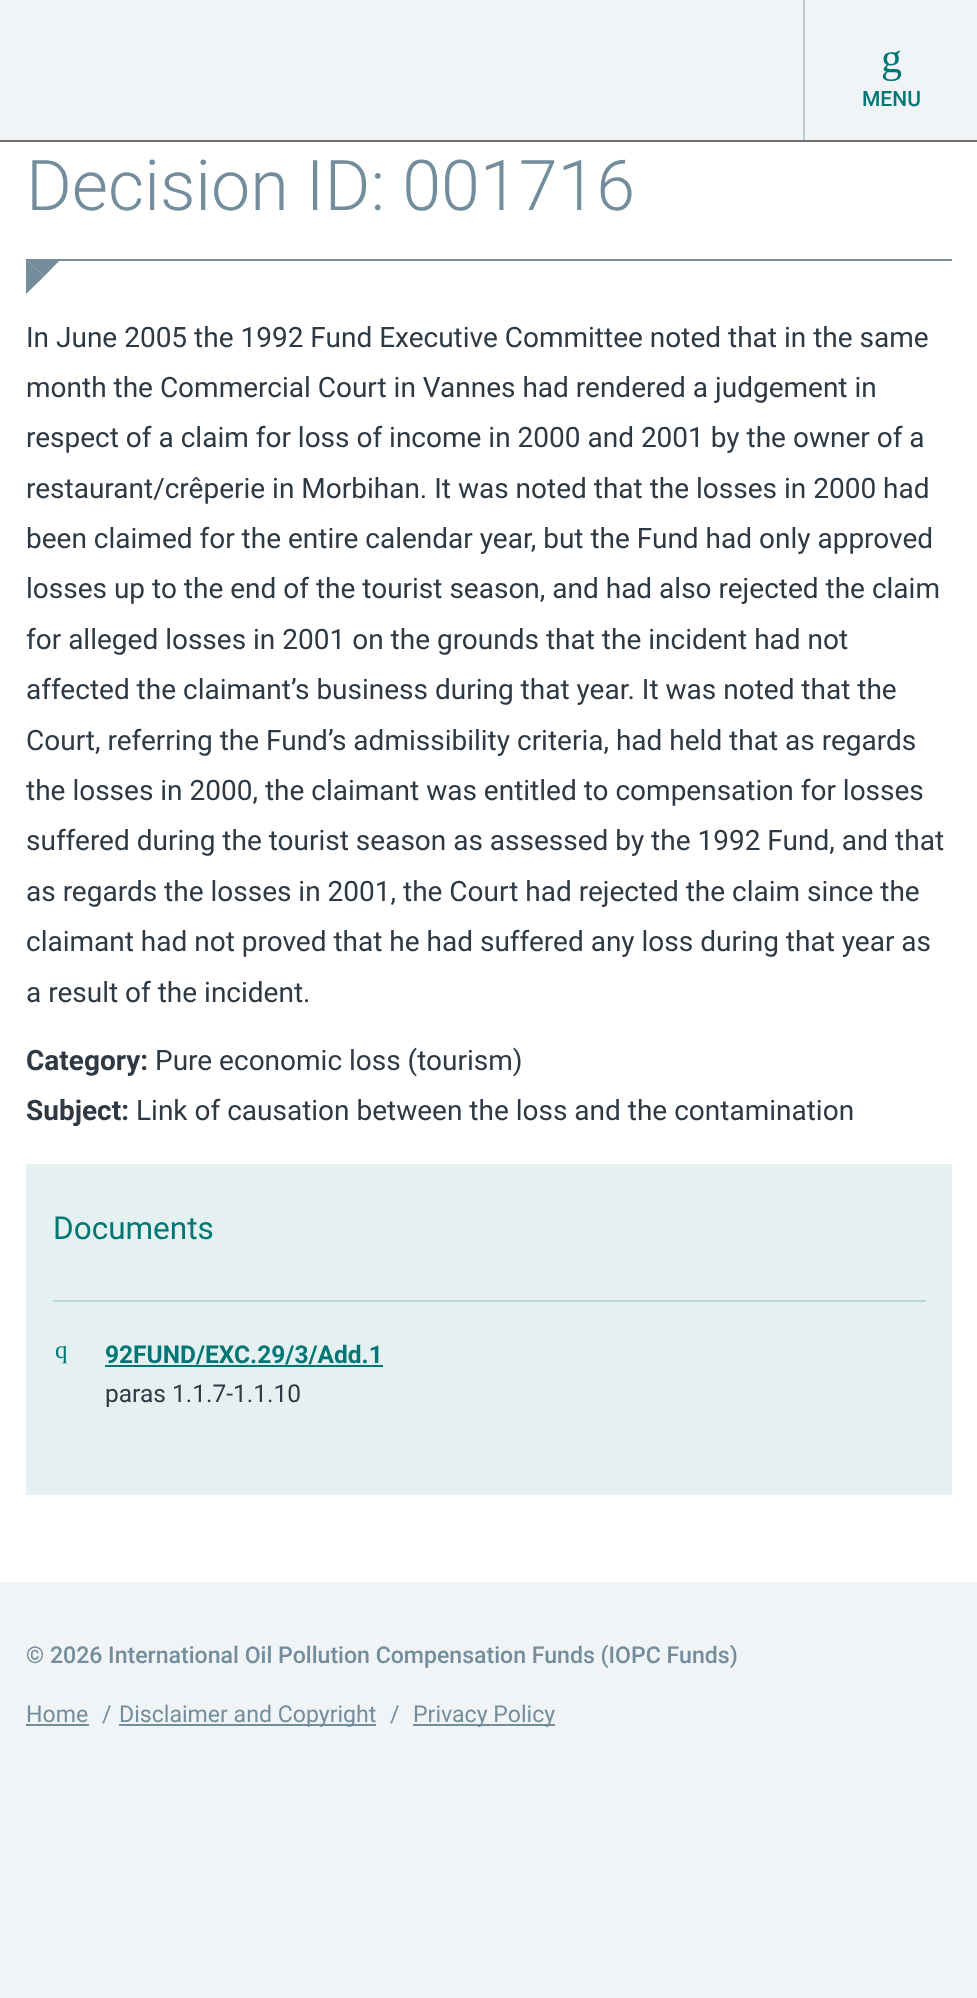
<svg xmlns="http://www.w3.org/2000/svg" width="977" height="1998">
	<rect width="100%" height="100%" fill="#F0F4F7" />
	<rect x="0" y="140" width="977" height="2" fill="#707070" />
	<rect x="803" y="0" width="2" height="140" fill="#BECAD1" />
	<text x="881" y="72" font-family="Liberation Serif" font-size="42" fill="#007675">g</text>
	<text x="862" y="106" font-family="Roboto" font-size="21" font-weight="500" fill="#007675">MENU</text>
	<rect x="0" y="142" width="977" height="1440" fill="#FFFFFF" />
	<rect x="26" y="259" width="926" height="2" fill="#748D9C" />
	<text x="26" y="210" font-family="Roboto" font-size="70" font-weight="300" fill="#748D9C">Decision ID: 001716</text>
	<path d="M26 259H61L44 276.5Z" fill="#748D9C" />
	<path d="M26 294V259L44 276.5Z" fill="#748D9C" />
	<g font-family="Roboto" font-size="28" fill="#2E3943">
		<text x="26" y="347">In June 2005 the 1992 Fund Executive Committee noted that in the same</text>
		<text x="26" y="397">month the Commercial Court in Vannes had rendered a judgement in</text>
		<text x="26" y="447">respect of a claim for loss of income in 2000 and 2001 by the owner of a</text>
		<text x="26" y="498">restaurant/crêperie in Morbihan. It was noted that the losses in 2000 had</text>
		<text x="26" y="548">been claimed for the entire calendar year, but the Fund had only approved</text>
		<text x="26" y="598">losses up to the end of the tourist season, and had also rejected the claim</text>
		<text x="26" y="649">for alleged losses in 2001 on the grounds that the incident had not</text>
		<text x="26" y="699">affected the claimant’s business during that year. It was noted that the</text>
		<text x="26" y="750">Court, referring the Fund’s admissibility criteria, had held that as regards</text>
		<text x="26" y="800">the losses in 2000, the claimant was entitled to compensation for losses</text>
		<text x="26" y="850">suffered during the tourist season as assessed by the 1992 Fund, and that</text>
		<text x="26" y="901">as regards the losses in 2001, the Court had rejected the claim since the</text>
		<text x="26" y="951">claimant had not proved that he had suffered any loss during that year as</text>
		<text x="26" y="1002">a result of the incident.</text>
	</g>
	<text x="26" y="1070" font-family="Roboto" font-size="28" font-weight="700" fill="#2E3943">Category:</text>
	<text x="155" y="1070" font-family="Roboto" font-size="28" fill="#2E3943">Pure economic loss (tourism)</text>
	<text x="26" y="1120" font-family="Roboto" font-size="28" font-weight="700" fill="#2E3943">Subject:</text>
	<text x="136" y="1120" font-family="Roboto" font-size="28" fill="#2E3943">Link of causation between the loss and the contamination</text>
	<rect x="26" y="1164" width="926" height="331" fill="#E5F1F1" />
	<text x="53" y="1239" font-family="Roboto" font-size="31.5" fill="#007675">Documents</text>
	<rect x="53" y="1300" width="873" height="2" fill="#B7D8D8" />
	<text x="55" y="1358" font-family="Liberation Serif" font-size="25" fill="#007675">q</text>
	<text x="105" y="1363" font-family="Roboto" font-size="24.5" font-weight="700" fill="#007675">92FUND/EXC.29/3/Add.1</text>
	<rect x="105" y="1365" width="278" height="2" fill="#007675" />
	<text x="105" y="1402" font-family="Roboto" font-size="24.5" fill="#2E3943">paras 1.1.7-1.1.10</text>
	<text x="26" y="1663" font-family="Roboto" font-size="23.1" font-weight="500" fill="#748D9C">© 2026 International Oil Pollution Compensation Funds (IOPC Funds)</text>
	<text x="26" y="1722" font-family="Roboto" font-size="23.1" fill="#748D9C">Home</text>
	<rect x="26" y="1724" width="63" height="2" fill="#748D9C" />
	<text x="102" y="1722" font-family="Roboto" font-size="23.1" fill="#748D9C">/</text>
	<rect x="119" y="1724" width="257" height="2" fill="#748D9C" />
	<g font-family="Roboto" font-size="23.1" fill="#748D9C">
		<text x="119" y="1722">Disclaimer and Copyright</text>
		<text x="390" y="1722">/</text>
	</g>
	<rect x="413" y="1724" width="142" height="2" fill="#748D9C" />
	<text x="413" y="1722" font-family="Roboto" font-size="23.1" fill="#748D9C">Privacy Policy</text>
</svg>
